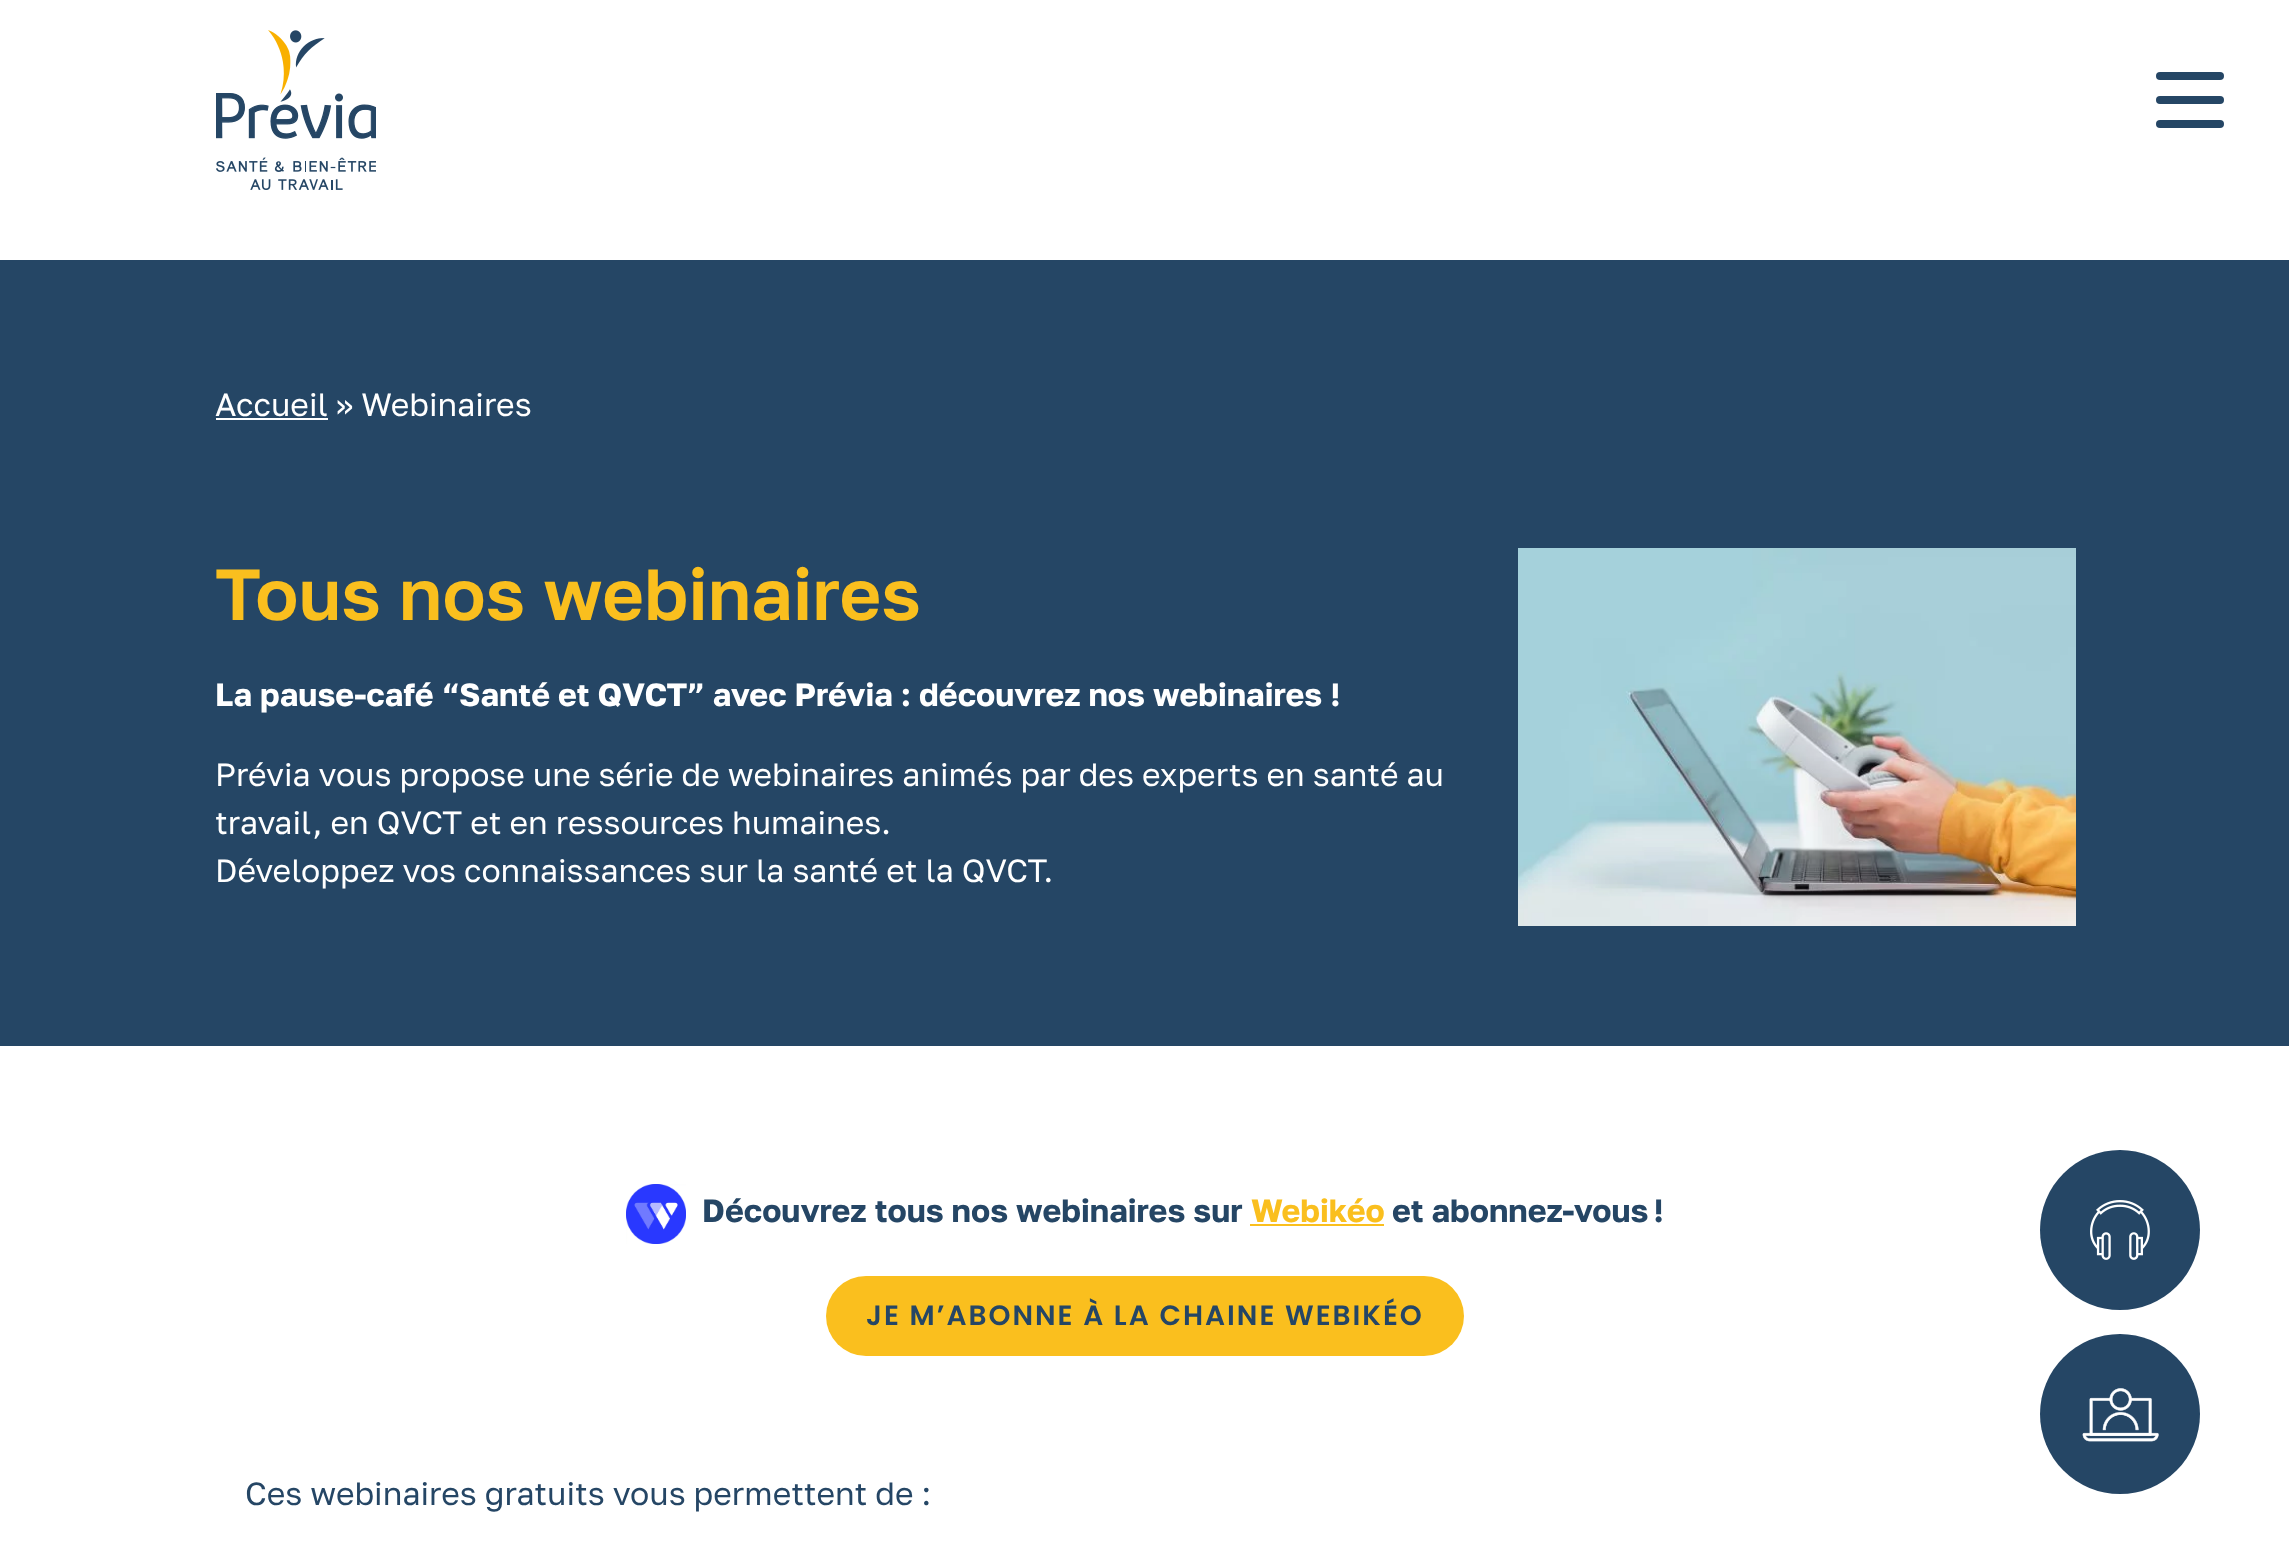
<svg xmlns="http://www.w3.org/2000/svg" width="2289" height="1554">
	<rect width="100%" height="100%" fill="#FFFFFF" />
	<image x="216" y="30" width="160" height="160" href="assets/img1.png" />
	<rect x="2156" y="72" width="68" height="8" rx="4" fill="#254665" />
	<rect x="2156" y="96" width="68" height="8" rx="4" fill="#254665" />
	<rect x="2156" y="120" width="68" height="8" rx="4" fill="#254665" />
	<rect x="0" y="260" width="2289" height="786" fill="#254665" />
	<text x="215" y="416" font-family="Golos Text" font-size="32" fill="#FFFFFF">Accueil » Webinaires</text>
	<rect x="216" y="418" width="112" height="2" fill="#FFFFFF" />
	<text x="215" y="620" font-family="Golos Text" font-size="72" font-weight="600" fill="#FABF1E">Tous nos webinaires</text>
	<text x="215" y="706" font-family="Golos Text" font-size="32" font-weight="700" fill="#FFFFFF">La pause-café “Santé et QVCT” avec Prévia : découvrez nos webinaires !</text>
	<g font-family="Golos Text" font-size="32" fill="#FFFFFF">
		<text x="215" y="786">Prévia vous propose une série de webinaires animés par des experts en santé au</text>
		<text x="215" y="834">travail, en QVCT et en ressources humaines.</text>
		<text x="215" y="882">Développez vos connaissances sur la santé et la QVCT.</text>
	</g>
	<image x="1518" y="548" width="558" height="378" href="assets/img2.png" />
	<circle cx="2120" cy="1230" r="80" fill="#254665" />
	<image x="2090" y="1200" width="60" height="60" href="assets/img3.png" />
	<circle cx="2120" cy="1414" r="80" fill="#254665" />
	<image x="2082" y="1388" width="77" height="54" href="assets/img4.png" />
	<image x="626" y="1184" width="60" height="60" href="assets/img5.png" />
	<text x="702" y="1222" font-family="Golos Text" font-size="32" font-weight="700" fill="#254665">Découvrez tous nos webinaires sur</text>
	<text x="1251" y="1222" font-family="Golos Text" font-size="32" font-weight="700" fill="#FABF1E">Webikéo</text>
	<rect x="1250" y="1224" width="134" height="2" fill="#FABF1E" />
	<text x="1392" y="1222" font-family="Golos Text" font-size="32" font-weight="700" fill="#254665">et abonnez-vous !</text>
	<rect x="826" y="1276" width="638" height="80" rx="40" fill="#FABF1E" />
	<text x="866" y="1325" font-family="Poppins" font-size="28" font-weight="600" letter-spacing="2" fill="#254665">JE M’ABONNE À LA CHAINE WEBIKÉO</text>
	<text x="245" y="1505" font-family="Golos Text" font-size="32" fill="#254665">Ces webinaires gratuits vous permettent de :</text>
</svg>
